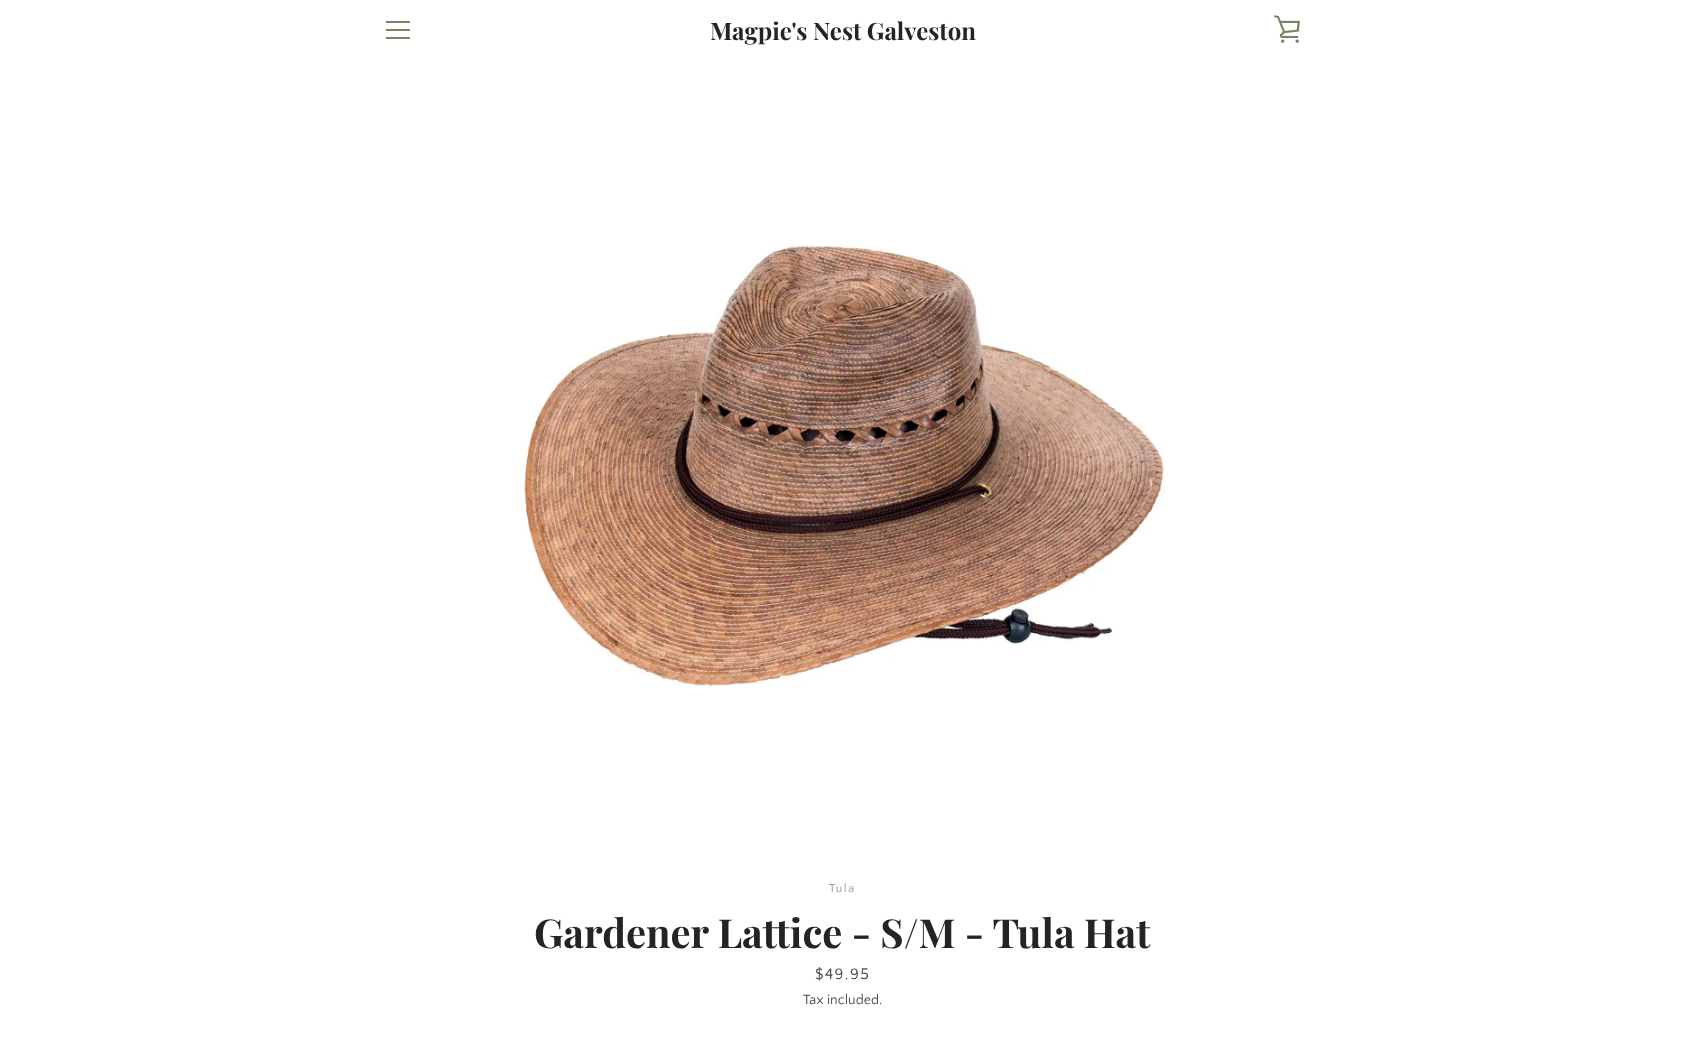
<svg xmlns="http://www.w3.org/2000/svg" width="1685" height="1053">
	<rect width="100%" height="100%" fill="#FFFFFF" />
	<rect x="386" y="21" width="24" height="2" fill="#758560" />
	<rect x="386" y="29" width="24" height="2" fill="#758560" />
	<rect x="386" y="37" width="24" height="2" fill="#758560" />
	<text x="710" y="40" font-family="Playfair Display" font-size="24" font-weight="700" fill="#242424">Magpie's Nest Galveston</text>
	<image x="1274" y="15" width="26" height="28" href="assets/img1.png" />
	<image x="523" y="241" width="643" height="446" href="assets/img2.png" />
	<text x="829" y="892" font-family="Quattrocento Sans" font-size="12" letter-spacing="1.5" fill="#979797">Tula</text>
	<text x="534" y="948" font-family="Playfair Display" font-size="40" font-weight="700" fill="#242424">Gardener Lattice - S/M - Tula Hat</text>
	<text x="815" y="979" font-family="Quattrocento Sans" font-size="16" letter-spacing="1.5" fill="#4A4A4A">$49.95</text>
	<text x="803" y="1004" font-family="Quattrocento Sans" font-size="14" fill="#4A4A4A">Tax included.</text>
</svg>
